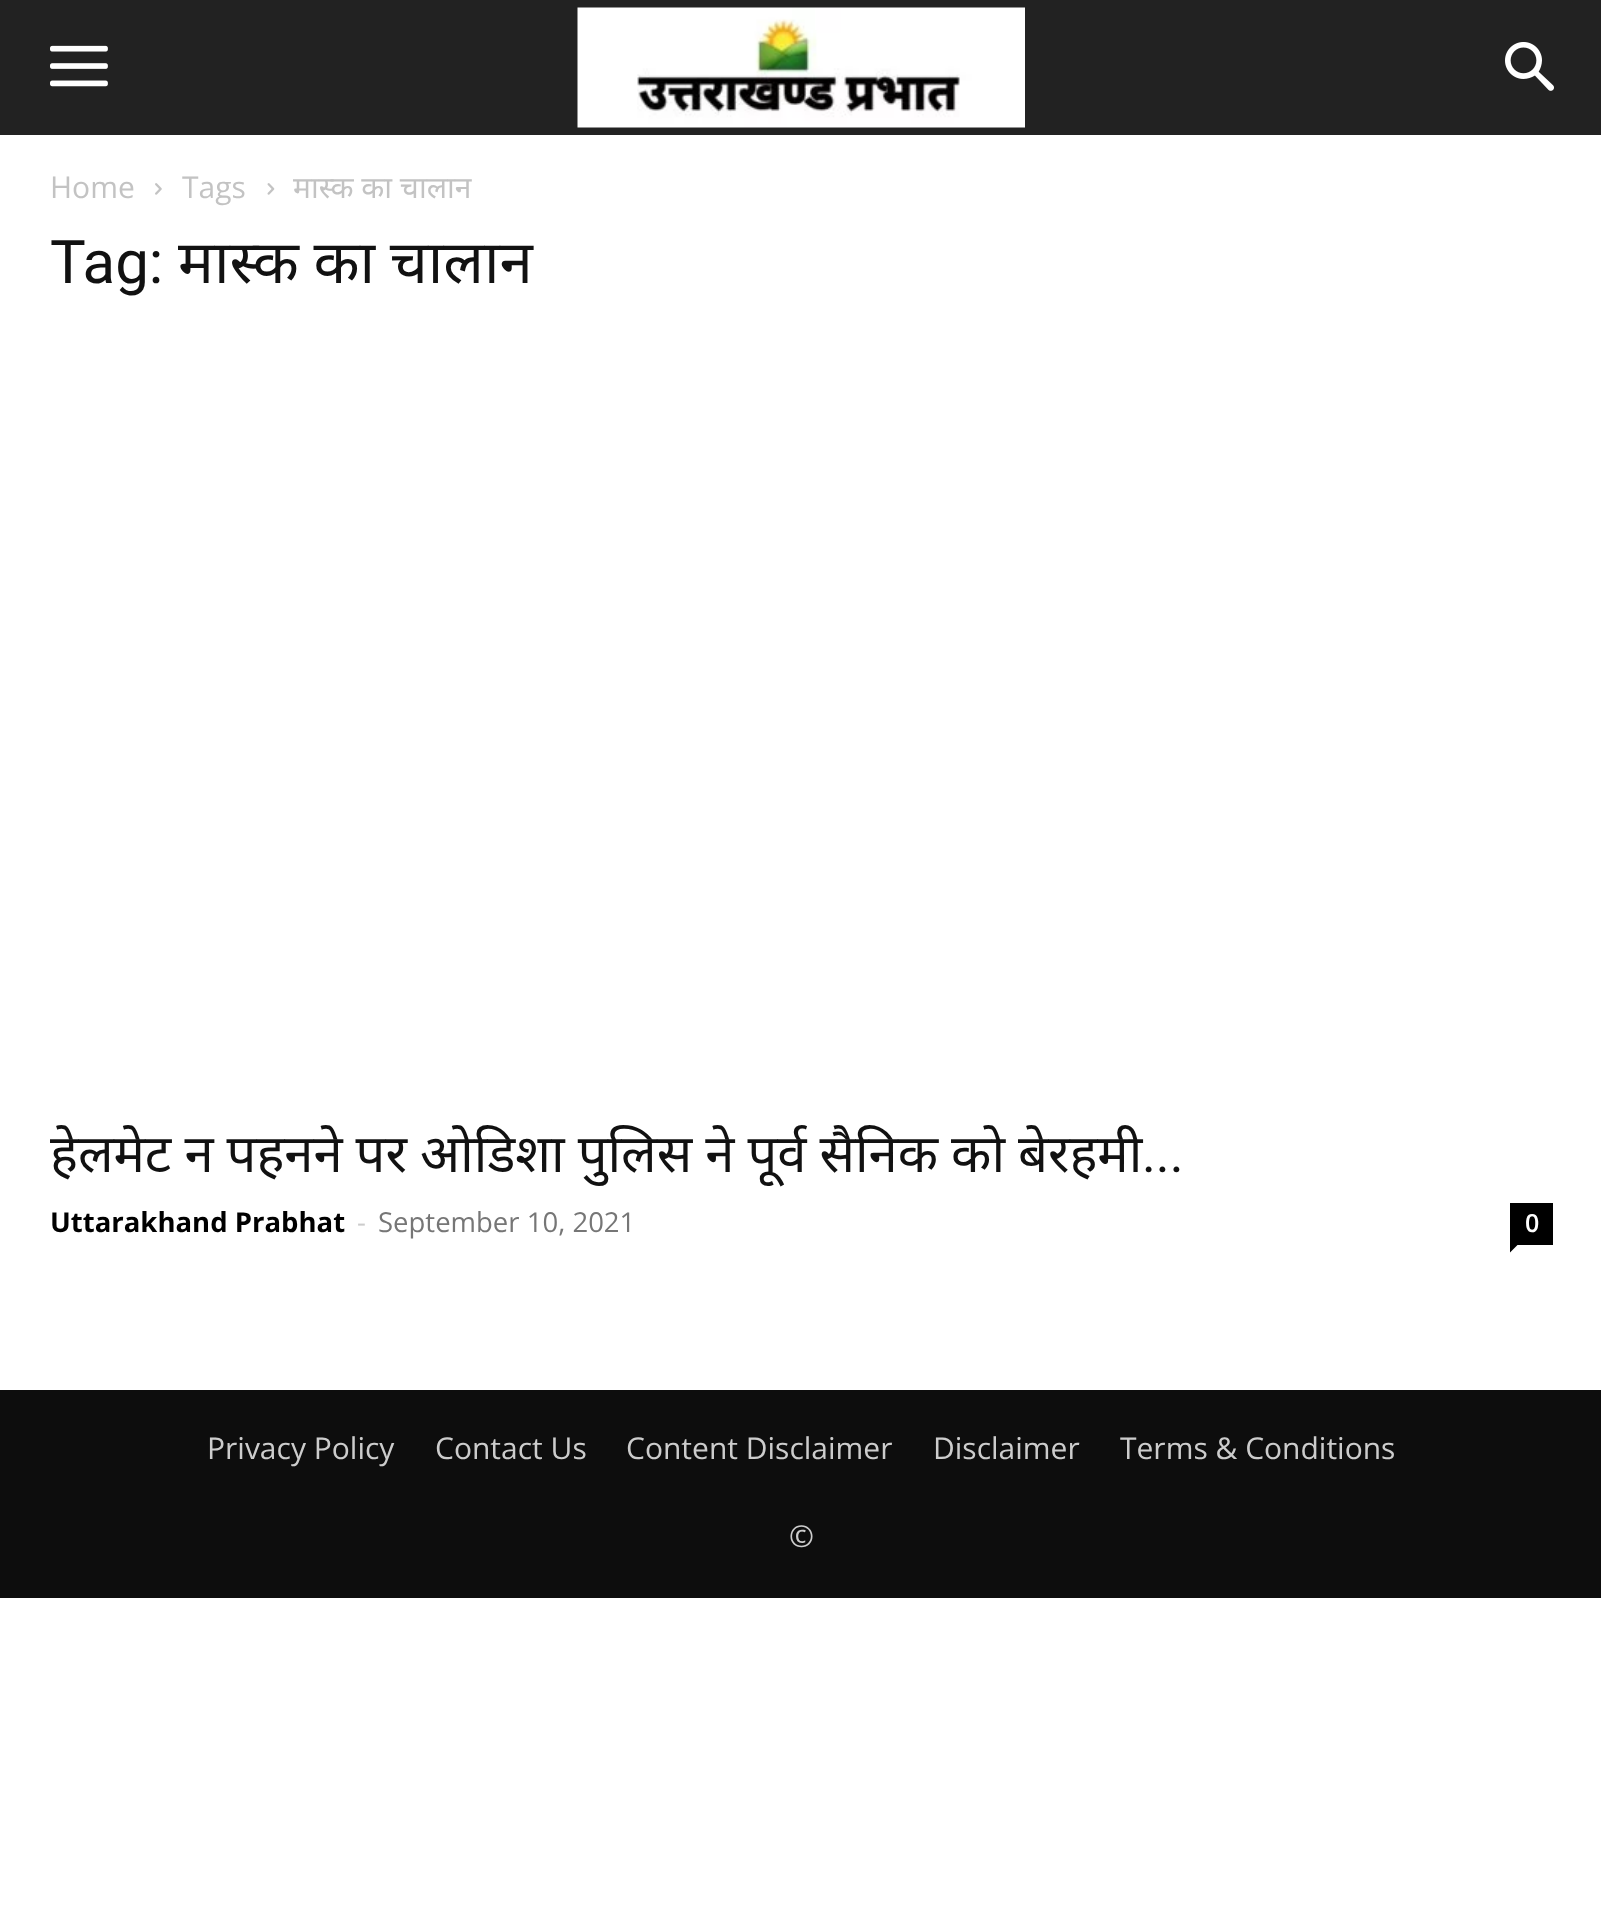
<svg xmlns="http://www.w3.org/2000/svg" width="1601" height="1906">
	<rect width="100%" height="100%" fill="#FFFFFF" />
	<rect x="0" y="0" width="1601" height="135" fill="#222222" />
	<image x="50" y="45" width="58" height="42" href="assets/img1.png" />
	<image x="577" y="7" width="448" height="121" href="assets/img2.png" />
	<image x="1505" y="42" width="49" height="49" href="assets/img3.png" />
	<text x="50" y="198" font-family="Open Sans" font-size="30" fill="#C3C3C3">Home</text>
	<image x="155" y="183" width="7" height="12" href="assets/img4.png" />
	<text x="182" y="198" font-family="Open Sans" font-size="30" fill="#C3C3C3">Tags</text>
	<image x="267" y="183" width="8" height="12" href="assets/img5.png" />
	<text x="293" y="198" font-family="Noto Sans" font-size="30" fill="#C3C3C3">मास्क का चालान</text>
	<text x="50" y="283" font-family="Roboto" font-size="60" fill="#111111">Tag:</text>
	<text x="178" y="283" word-spacing="-1" font-family="Noto Sans" font-size="60" fill="#111111">मास्क का चालान</text>
	<text x="50" y="1172" word-spacing="-0.6" font-family="Noto Sans" font-size="52.5" fill="#111111">हेलमेट न पहनने पर ओडिशा पुलिस ने पूर्व सैनिक को बेरहमी</text>
	<text x="1142" y="1172" font-family="Roboto" font-size="52.5" fill="#111111">...</text>
	<text x="50" y="1232" font-family="Open Sans" font-size="27.5" font-weight="700" fill="#000000">Uttarakhand Prabhat</text>
	<text x="357" y="1232" font-family="Open Sans" font-size="27.5" fill="#CCCCCC">-</text>
	<text x="378" y="1232" font-family="Open Sans" font-size="27.5" fill="#767676">September 10, 2021</text>
	<rect x="1510" y="1203" width="43" height="42" fill="#000000" />
	<text x="1525" y="1232" font-family="Open Sans" font-size="25" font-weight="600" fill="#FFFFFF">0</text>
	<path d="M1510 1245H1517.5L1510 1252.5Z" fill="#000000" />
	<rect x="0" y="1390" width="1601" height="208" fill="#0D0D0D" />
	<g font-family="Open Sans" font-size="30" fill="#CCCCCC">
		<text x="207" y="1459">Privacy Policy</text>
		<text x="435" y="1459">Contact Us</text>
		<text x="626" y="1459">Content Disclaimer</text>
		<text x="933" y="1459">Disclaimer</text>
		<text x="1120" y="1459">Terms &amp; Conditions</text>
		<text x="789" y="1547">©</text>
	</g>
</svg>
